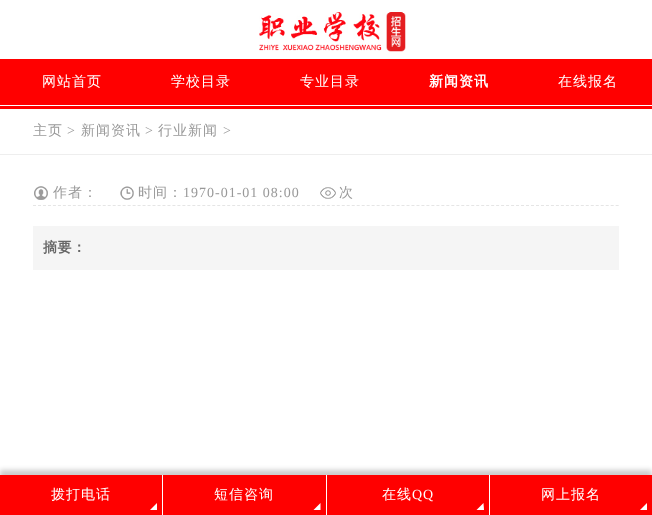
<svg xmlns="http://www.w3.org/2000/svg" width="652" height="515">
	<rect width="100%" height="100%" fill="#FFFFFF" />
	<image x="259" y="12" width="147" height="40" href="assets/img1.png" />
	<rect x="0" y="106" width="652" height="3" fill="#FF0000" />
	<rect x="0" y="59" width="652" height="46" fill="#FF0000" />
	<g font-family="WenQuanYi Zen Hei" font-size="14" font-weight="500" letter-spacing="1" fill="#FFFFFF">
		<text x="42" y="86">网站首页</text>
		<text x="171" y="86">学校目录</text>
		<text x="300" y="86">专业目录</text>
	</g>
	<text x="429" y="86" font-family="WenQuanYi Zen Hei" font-size="14" font-weight="700" letter-spacing="1" fill="#FFFFFF">新闻资讯</text>
	<text x="558" y="86" font-family="WenQuanYi Zen Hei" font-size="14" font-weight="500" letter-spacing="1" fill="#FFFFFF">在线报名</text>
	<text x="33" y="135" font-family="WenQuanYi Zen Hei" font-size="14" font-weight="500" letter-spacing="1" fill="#999999">主页</text>
	<text x="67" y="135" font-family="Liberation Serif" font-size="14" letter-spacing="1" fill="#999999">&gt;</text>
	<text x="81" y="135" font-family="WenQuanYi Zen Hei" font-size="14" font-weight="500" letter-spacing="1" fill="#999999">新闻资讯</text>
	<text x="145" y="135" font-family="Liberation Serif" font-size="14" letter-spacing="1" fill="#999999">&gt;</text>
	<text x="158" y="135" font-family="WenQuanYi Zen Hei" font-size="14" font-weight="500" letter-spacing="1" fill="#999999">行业新闻</text>
	<text x="223" y="135" font-family="Liberation Serif" font-size="14" letter-spacing="1" fill="#999999">&gt;</text>
	<rect x="0" y="154" width="652" height="1" fill="#EEEEEE" />
	<path d="M33 205.5H619" fill="none" stroke="#E5E5E5" stroke-dasharray="3 1.98" />
	<image x="34" y="186" width="14" height="14" href="assets/img2.png" />
	<text x="53" y="197" font-family="WenQuanYi Zen Hei" font-size="14" font-weight="500" letter-spacing="1" fill="#999999">作者：</text>
	<image x="120" y="186" width="14" height="14" href="assets/img3.png" />
	<text x="138" y="197" font-family="WenQuanYi Zen Hei" font-size="14" font-weight="500" letter-spacing="1" fill="#999999">时间：</text>
	<text x="183" y="197" font-family="Liberation Serif" font-size="14" letter-spacing="1" fill="#999999">1970-01-01 08:00</text>
	<image x="320" y="187" width="16" height="12" href="assets/img4.png" />
	<text x="339" y="197" font-family="WenQuanYi Zen Hei" font-size="14" font-weight="500" letter-spacing="1" fill="#999999">次</text>
	<rect x="33" y="226" width="586" height="44" fill="#F5F5F5" />
	<text x="43" y="252" font-family="WenQuanYi Zen Hei" font-size="14" font-weight="700" letter-spacing="0.5" fill="#666666">摘要：</text>
	<rect x="0" y="470" width="652" height="40" fill="#000000" fill-opacity="0.2" filter="blur(2.5px)" />
	<rect x="0" y="475" width="652" height="40" fill="#FF0000" />
	<rect x="162" y="475" width="1" height="40" fill="#FFFFFF" />
	<text x="51" y="499" font-family="WenQuanYi Zen Hei" font-size="14" font-weight="500" letter-spacing="1" fill="#FFFFFF">拨打电话</text>
	<path d="M150 510L157 503V510Z" fill="#FFFFFF" />
	<rect x="326" y="475" width="1" height="40" fill="#FFFFFF" />
	<text x="214" y="499" font-family="WenQuanYi Zen Hei" font-size="14" font-weight="500" letter-spacing="1" fill="#FFFFFF">短信咨询</text>
	<path d="M313.5 510L320.5 503V510Z" fill="#FFFFFF" />
	<rect x="489" y="475" width="1" height="40" fill="#FFFFFF" />
	<text x="382" y="499" font-family="WenQuanYi Zen Hei" font-size="14" font-weight="500" letter-spacing="1" fill="#FFFFFF">在线</text>
	<text x="412" y="499" font-family="Liberation Serif" font-size="14" letter-spacing="1" fill="#FFFFFF">QQ</text>
	<path d="M476.5 510L483.5 503L484 510Z" fill="#FFFFFF" />
	<text x="541" y="499" font-family="WenQuanYi Zen Hei" font-size="14" font-weight="500" letter-spacing="1" fill="#FFFFFF">网上报名</text>
	<path d="M640 510L647 503V510Z" fill="#FFFFFF" />
</svg>
